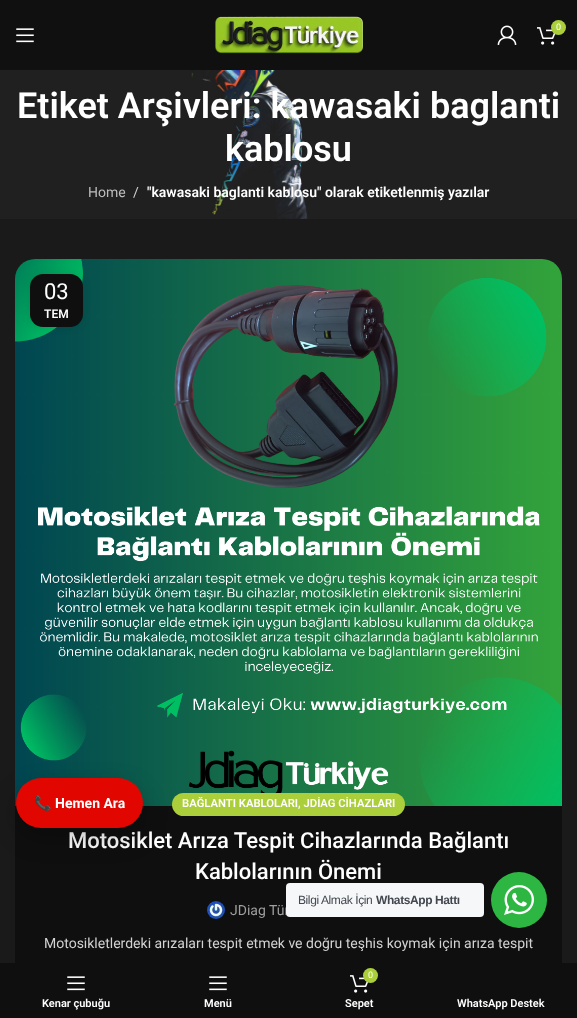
<svg xmlns="http://www.w3.org/2000/svg" width="577" height="1018">
	<rect width="100%" height="100%" fill="#1A1A1A" />
	<rect x="0" y="0" width="577" height="70" fill="#101010" />
	<image x="215" y="16" width="148" height="38" href="assets/img1.png" />
	<image x="497" y="25" width="20" height="20" href="assets/img2.png" />
	<image x="537" y="27" width="19" height="18" href="assets/img3.png" />
	<circle cx="558.5" cy="27.5" r="7.5" fill="#ABCF3B" />
	<text x="556" y="30" font-family="Roboto" font-size="9" fill="#FFFFFF">0</text>
	<image x="16" y="28" width="18" height="15" href="assets/img4.png" />
	<image x="0" y="70" width="577" height="149" href="assets/img5.png" />
	<g font-family="Roboto" font-size="36" font-weight="600" fill="#FFFFFF">
		<text x="17" y="118">Etiket Arşivleri: kawasaki baglanti</text>
		<text x="225" y="161">kablosu</text>
	</g>
	<text x="88" y="197" font-family="Roboto" font-size="14" fill="#BCBCBC">Home</text>
	<text x="133" y="197" font-family="Roboto" font-size="14" fill="#D2D2D2">/</text>
	<text x="147" y="197" font-family="Roboto" font-size="14" font-weight="600" fill="#FFFFFF">"kawasaki baglanti kablosu" olarak etiketlenmiş yazılar</text>
	<image x="15" y="259" width="547" height="547" href="assets/img6.png" />
	<rect x="30" y="274" width="53" height="53" rx="13" fill="#000000" fill-opacity="0.1" filter="blur(4.5px)" />
	<rect x="30" y="274" width="53" height="53" rx="13" fill="#0F0F0F" />
	<text x="44" y="299" font-family="Roboto" font-size="22" fill="#FFFFFF">03</text>
	<text x="44" y="318" font-family="Roboto" font-size="12" font-weight="600" fill="#FFFFFF">TEM</text>
	<rect x="15" y="806" width="547" height="157" fill="#0F0F0F" />
	<rect x="172" y="793" width="233" height="23" rx="11.5" fill="#ABCF3B" />
	<text x="182" y="807" font-family="Roboto" font-size="11.25" font-weight="600" fill="#FFFFFF">BAĞLANTI KABLOLARI, JDİAG CİHAZLARI</text>
	<g font-family="Roboto" font-size="22" font-weight="500" fill="#FFFFFF">
		<text x="68" y="848">Motosiklet Arıza Tespit Cihazlarında Bağlantı</text>
		<text x="195" y="879">Kablolarının Önemi</text>
	</g>
	<image x="207" y="901" width="18" height="18" href="assets/img7.png" />
	<text x="230" y="915" font-family="Roboto" font-size="14" fill="#9F9F9F">JDiag Tür</text>
	<text x="44" y="948" font-family="Roboto" font-size="14" fill="#D2D2D2">Motosikletlerdeki arızaları tespit etmek ve doğru teşhis koymak için arıza tespit</text>
	<rect x="16" y="788" width="127" height="50" rx="25" fill="#000000" fill-opacity="0.25" filter="blur(12.5px)" />
	<rect x="16" y="778" width="127" height="50" rx="25" fill="#E10600" />
	<text x="34" y="808" font-family="Noto Color Emoji" font-size="14" font-weight="700" fill="#FFFFFF">📞</text>
	<text x="55" y="808" font-family="Roboto" font-size="14" font-weight="700" fill="#FFFFFF">Hemen Ara</text>
	<rect x="286" y="883" width="198" height="34" rx="4" fill="#F5F7F9" />
	<text x="298" y="904" font-family="Liberation Sans" font-size="12" letter-spacing="-0.4" fill="#43474E">Bilgi Almak İçin</text>
	<text x="376" y="904" font-family="Liberation Sans" font-size="12" font-weight="700" letter-spacing="-0.4" fill="#43474E">WhatsApp Hattı</text>
	<circle cx="519" cy="900" r="28" fill="#2DB742" />
	<image x="504" y="885" width="30" height="30" href="assets/img8.png" />
	<rect x="0" y="963" width="577" height="55" fill="#0F0F0F" />
	<image x="67" y="976" width="18" height="15" href="assets/img9.png" />
	<text x="42" y="1007" font-family="Roboto" font-size="11" font-weight="600" fill="#FFFFFF">Kenar çubuğu</text>
	<image x="209" y="976" width="18" height="15" href="assets/img9.png" />
	<text x="204" y="1007" font-family="Roboto" font-size="11" font-weight="600" fill="#FFFFFF">Menü</text>
	<image x="350" y="975" width="19" height="18" href="assets/img10.png" />
	<circle cx="370.5" cy="975.5" r="7.5" fill="#ABCF3B" />
	<text x="368" y="978" font-family="Roboto" font-size="9" fill="#FFFFFF">0</text>
	<g font-family="Roboto" font-size="11" font-weight="600" fill="#FFFFFF">
		<text x="345" y="1007">Sepet</text>
		<text x="457" y="1007">WhatsApp Destek</text>
	</g>
</svg>
